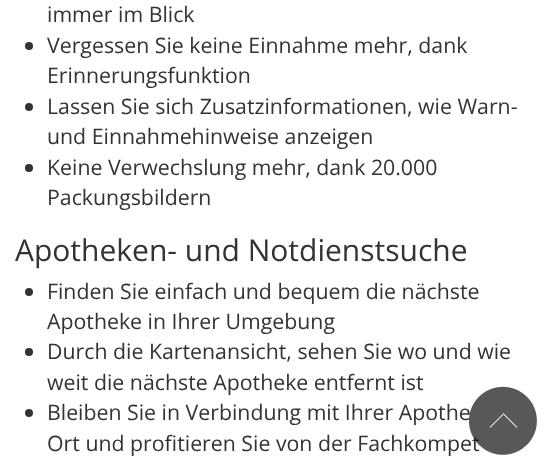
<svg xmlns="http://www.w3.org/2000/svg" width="558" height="476">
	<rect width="100%" height="100%" fill="#FFFFFF" />
	<text x="47" y="22" font-family="Open Sans" font-size="21.3" fill="#333333">immer im Blick</text>
	<circle cx="29" cy="46" r="4" fill="#333333" />
	<g font-family="Open Sans" font-size="21.3" fill="#333333">
		<text x="47" y="53">Vergessen Sie keine Einnahme mehr, dank</text>
		<text x="47" y="83">Erinnerungsfunktion</text>
	</g>
	<circle cx="29" cy="107" r="4" fill="#333333" />
	<g font-family="Open Sans" font-size="21.3" fill="#333333">
		<text x="47" y="114">Lassen Sie sich Zusatzinformationen, wie Warn-</text>
		<text x="47" y="144">und Einnahmehinweise anzeigen</text>
	</g>
	<circle cx="29" cy="168" r="4" fill="#333333" />
	<g font-family="Open Sans" font-size="21.3" fill="#333333">
		<text x="47" y="175">Keine Verwechslung mehr, dank 20.000</text>
		<text x="47" y="205">Packungsbildern</text>
	</g>
	<text x="15" y="261" font-family="Open Sans" font-size="30" fill="#333333">Apotheken- und Notdienstsuche</text>
	<circle cx="29" cy="292" r="4" fill="#333333" />
	<g font-family="Open Sans" font-size="21.3" fill="#333333">
		<text x="47" y="299">Finden Sie einfach und bequem die nächste</text>
		<text x="47" y="329">Apotheke in Ihrer Umgebung</text>
	</g>
	<circle cx="29" cy="352" r="4" fill="#333333" />
	<g font-family="Open Sans" font-size="21.3" fill="#333333">
		<text x="47" y="359">Durch die Kartenansicht, sehen Sie wo und wie</text>
		<text x="47" y="390">weit die nächste Apotheke entfernt ist</text>
	</g>
	<circle cx="29" cy="413" r="4" fill="#333333" />
	<g font-family="Open Sans" font-size="21.3" fill="#333333">
		<text x="47" y="420">Bleiben Sie in Verbindung mit Ihrer Apothe</text>
		<text x="47" y="451">Ort und profitieren Sie von der Fachkompet</text>
	</g>
	<image x="468" y="386" width="69" height="69" href="assets/img1.png" />
</svg>
